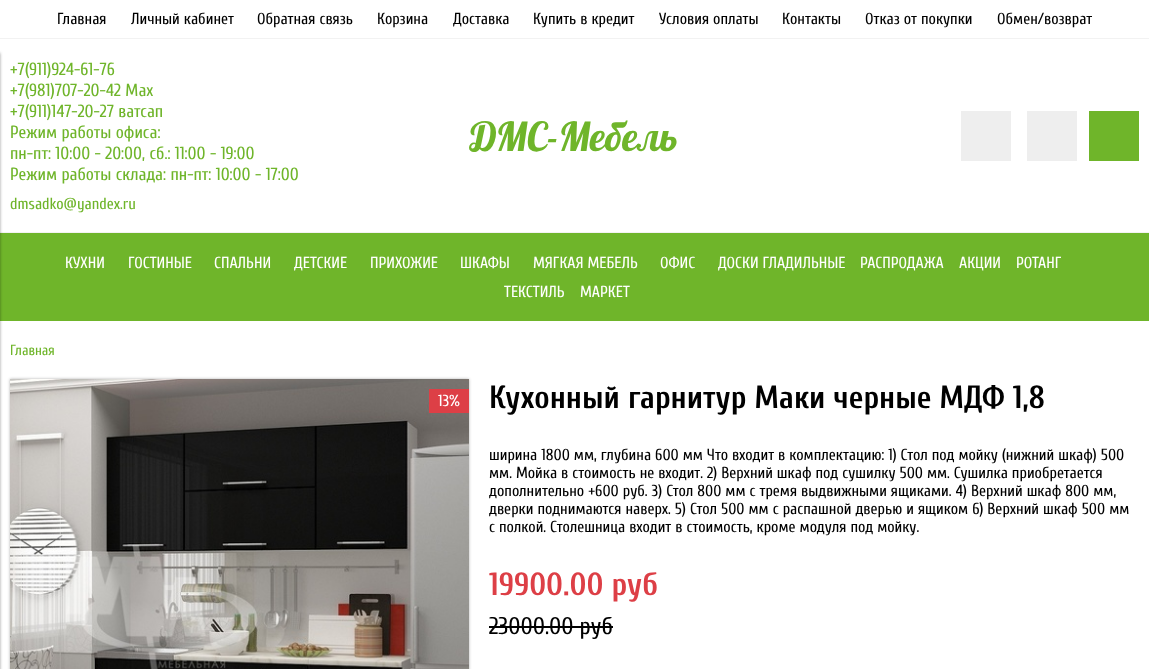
<svg xmlns="http://www.w3.org/2000/svg" width="1149" height="669">
	<rect width="100%" height="100%" fill="#FFFFFF" />
	<rect x="0" y="232" width="1149" height="1" fill="#F2F2F2" />
	<rect x="0" y="233" width="1149" height="88" fill="#6FB52A" />
	<rect x="-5" y="53" width="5" height="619" fill="#000000" fill-opacity="0.4" filter="blur(1.5px)" />
	<rect x="0" y="38" width="1149" height="1" fill="#F2F2F2" />
	<g font-family="Cuprum" font-size="16" fill="#000000">
		<text x="57" y="24">Главная</text>
		<text x="131" y="24">Личный кабинет</text>
		<text x="257" y="24">Обратная связь</text>
		<text x="377" y="24">Корзина</text>
		<text x="453" y="24">Доставка</text>
		<text x="533" y="24">Купить в кредит</text>
		<text x="659" y="24">Условия оплаты</text>
		<text x="782" y="24">Контакты</text>
		<text x="865" y="24">Отказ от покупки</text>
		<text x="997" y="24">Обмен/возврат</text>
	</g>
	<g font-family="Cuprum" font-size="17.6" fill="#6FB52A">
		<text x="10" y="75">+7(911)924-61-76</text>
		<text x="10" y="96">+7(981)707-20-42 Max</text>
		<text x="10" y="117">+7(911)147-20-27 ватсап</text>
		<text x="10" y="138">Режим работы офиса:</text>
		<text x="10" y="159">пн-пт: 10:00 - 20:00, сб.: 11:00 - 19:00</text>
		<text x="10" y="180">Режим работы склада: пн-пт: 10:00 - 17:00</text>
	</g>
	<text x="10" y="209" font-family="Cuprum" font-size="16" fill="#6FB52A">dmsadko@yandex.ru</text>
	<text x="470" y="151" font-family="Lobster" font-size="40" fill="#6FB52A">ДМС-Мебель</text>
	<rect x="961" y="111" width="50" height="50" fill="#EEEEEE" />
	<rect x="1027" y="111" width="50" height="50" fill="#EEEEEE" />
	<rect x="1089" y="111" width="50" height="50" fill="#6FB52A" />
	<g font-family="Cuprum" font-size="16" fill="#FFFFFF">
		<text x="65" y="268">КУХНИ</text>
		<text x="128" y="268">ГОСТИНЫЕ</text>
		<text x="214" y="268">СПАЛЬНИ</text>
		<text x="294" y="268">ДЕТСКИЕ</text>
		<text x="370" y="268">ПРИХОЖИЕ</text>
		<text x="460" y="268">ШКАФЫ</text>
		<text x="533" y="268">МЯГКАЯ МЕБЕЛЬ</text>
		<text x="660" y="268">ОФИС</text>
		<text x="718" y="268">ДОСКИ ГЛАДИЛЬНЫЕ</text>
		<text x="860" y="268">РАСПРОДАЖА</text>
		<text x="959" y="268">АКЦИИ</text>
		<text x="1016" y="268">РОТАНГ</text>
		<text x="504" y="297">ТЕКСТИЛЬ</text>
		<text x="580" y="297">МАРКЕТ</text>
	</g>
	<text x="10" y="355" font-family="Cuprum" font-size="14.5" fill="#6FB52A">Главная</text>
	<rect x="10" y="379" width="459" height="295" fill="#000000" fill-opacity="0.3" filter="blur(1.5px)" />
	<image x="10" y="379" width="459" height="290" href="assets/img1.png" />
	<rect x="429" y="389" width="40" height="24" fill="#DD3F46" />
	<text x="438" y="406" font-family="Cuprum" font-size="16" fill="#FFFFFF">13%</text>
	<text x="489" y="408" font-family="Cuprum" font-size="32" font-weight="700" fill="#000000">Кухонный гарнитур Маки черные МДФ 1,8</text>
	<g font-family="Cuprum" font-size="16" fill="#000000">
		<text x="489" y="460">ширина 1800 мм, глубина 600 мм Что входит в комплектацию: 1) Стол под мойку (нижний шкаф) 500</text>
		<text x="489" y="478">мм. Мойка в стоимость не входит. 2) Верхний шкаф под сушилку 500 мм. Сушилка приобретается</text>
		<text x="489" y="496">дополнительно +600 руб. 3) Стол 800 мм с тремя выдвижными ящиками. 4) Верхний шкаф 800 мм,</text>
		<text x="489" y="514">дверки поднимаются наверх. 5) Стол 500 мм с распашной дверью и ящиком 6) Верхний шкаф 500 мм</text>
		<text x="489" y="532">с полкой. Столешница входит в стоимость, кроме модуля под мойку.</text>
	</g>
	<text x="489" y="595" font-family="Cuprum" font-size="32" font-weight="700" fill="#DD3F46">19900.00 руб</text>
	<text x="489" y="634" font-family="Cuprum" font-size="24" fill="#000000">23000.00 руб</text>
	<rect x="489" y="626" width="124" height="2" fill="#000000" />
</svg>
